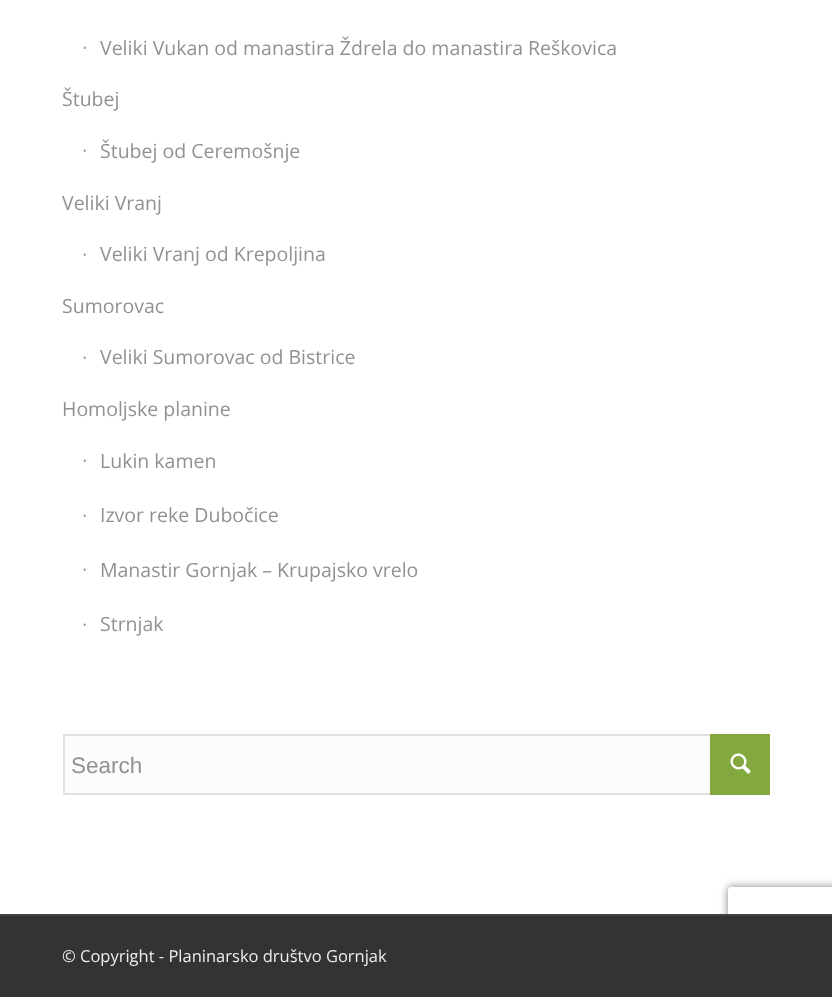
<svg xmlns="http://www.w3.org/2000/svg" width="832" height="997">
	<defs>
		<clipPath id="clip1"><path d="M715 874H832V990H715ZM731 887H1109C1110.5 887 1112 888.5 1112 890V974C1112 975.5 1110.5 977 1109 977H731C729.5 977 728 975.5 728 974V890C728 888.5 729.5 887 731 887Z" clip-rule="evenodd" /></clipPath>
	</defs>
	<rect width="100%" height="100%" fill="#FFFFFF" />
	<text x="82" y="53" font-family="Liberation Sans" font-size="19.5" fill="#919191">∙</text>
	<g font-family="Open Sans" font-size="19.5" fill="#919191">
		<text x="100" y="55">Veliki Vukan od manastira Ždrela do manastira Reškovica</text>
		<text x="62" y="106">Štubej</text>
	</g>
	<text x="82" y="156" font-family="Liberation Sans" font-size="19.5" fill="#919191">∙</text>
	<g font-family="Open Sans" font-size="19.5" fill="#919191">
		<text x="100" y="158">Štubej od Ceremošnje</text>
		<text x="62" y="210">Veliki Vranj</text>
	</g>
	<text x="82" y="260" font-family="Liberation Sans" font-size="19.5" fill="#919191">∙</text>
	<g font-family="Open Sans" font-size="19.5" fill="#919191">
		<text x="100" y="261">Veliki Vranj od Krepoljina</text>
		<text x="62" y="313">Sumorovac</text>
	</g>
	<text x="82" y="363" font-family="Liberation Sans" font-size="19.5" fill="#919191">∙</text>
	<g font-family="Open Sans" font-size="19.5" fill="#919191">
		<text x="100" y="364">Veliki Sumorovac od Bistrice</text>
		<text x="62" y="416">Homoljske planine</text>
	</g>
	<text x="82" y="466" font-family="Liberation Sans" font-size="19.5" fill="#919191">∙</text>
	<text x="100" y="468" font-family="Open Sans" font-size="19.5" fill="#919191">Lukin kamen</text>
	<text x="82" y="521" font-family="Liberation Sans" font-size="19.5" fill="#919191">∙</text>
	<text x="100" y="522" font-family="Open Sans" font-size="19.5" fill="#919191">Izvor reke Dubočice</text>
	<text x="82" y="575" font-family="Liberation Sans" font-size="19.5" fill="#919191">∙</text>
	<text x="100" y="577" font-family="Open Sans" font-size="19.5" fill="#919191">Manastir Gornjak – Krupajsko vrelo</text>
	<text x="82" y="630" font-family="Liberation Sans" font-size="19.5" fill="#919191">∙</text>
	<text x="100" y="631" font-family="Open Sans" font-size="19.5" fill="#919191">Strnjak</text>
	<rect x="65" y="736" width="645" height="57" fill="#FCFCFC" />
	<rect x="64" y="735" width="705" height="59" fill="none" stroke="#E1E1E1" stroke-width="2" />
	<text x="71" y="773" font-family="Liberation Sans" font-size="22.5" fill="#919191">Search</text>
	<rect x="710" y="734" width="60" height="61" fill="#83A83D" />
	<image x="730" y="753" width="21" height="21" href="assets/img1.png" />
	<g clip-path="url(#clip1)">
		<rect x="728" y="887" width="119" height="90" rx="3" fill="#808080" filter="blur(4px)" />
	</g>
	<rect x="0" y="916" width="832" height="81" fill="#333333" />
	<rect x="0" y="914" width="832" height="2" fill="#444444" />
	<text x="62" y="962" font-family="Open Sans" font-size="16.5" fill="#EEEEEE">© Copyright - Planinarsko društvo Gornjak</text>
</svg>
